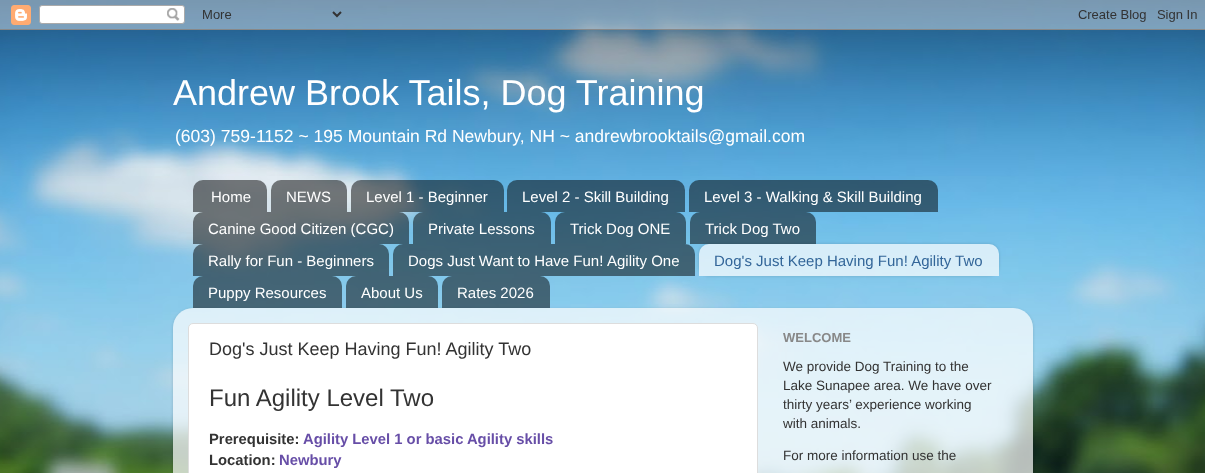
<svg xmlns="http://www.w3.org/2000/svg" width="1205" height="473">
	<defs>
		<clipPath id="clip1"><path d="M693 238H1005V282H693ZM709 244H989C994.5 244 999 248.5 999 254V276H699V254C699 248.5 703.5 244 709 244Z" clip-rule="evenodd" /></clipPath>
		<clipPath id="clip2"><path d="M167 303H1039V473H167ZM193 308H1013C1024 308 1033 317 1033 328V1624H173V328C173 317 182 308 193 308Z" clip-rule="evenodd" /></clipPath>
	</defs>
	<rect width="100%" height="100%" fill="#FFFFFF" />
	<image x="0" y="0" width="1205" height="473" href="assets/img1.png" />
	<image x="0" y="0" width="1205" height="30" href="assets/img2.png" />
	<text x="173" y="105" font-family="Liberation Sans" font-size="36" fill="#FFFFFF">Andrew Brook Tails, Dog Training</text>
	<text x="175" y="142" font-family="Liberation Sans" font-size="17.55" fill="#FFFFFF">(603) 759-1152 ~ 195 Mountain Rd Newbury, NH ~ andrewbrooktails@gmail.com</text>
	<image x="193" y="180" width="74" height="32" href="assets/img3.png" />
	<text x="211" y="202" font-family="Liberation Sans" font-size="15" fill="#FFFFFF">Home</text>
	<image x="271" y="180" width="76" height="32" href="assets/img4.png" />
	<text x="286" y="202" font-family="Liberation Sans" font-size="15" fill="#FFFFFF">NEWS</text>
	<image x="351" y="180" width="153" height="32" href="assets/img5.png" />
	<text x="366" y="202" font-family="Liberation Sans" font-size="15" fill="#FFFFFF">Level 1 - Beginner</text>
	<image x="507" y="180" width="178" height="32" href="assets/img6.png" />
	<text x="522" y="202" font-family="Liberation Sans" font-size="15" fill="#FFFFFF">Level 2 - Skill Building</text>
	<image x="689" y="180" width="249" height="32" href="assets/img7.png" />
	<text x="704" y="202" font-family="Liberation Sans" font-size="15" fill="#FFFFFF">Level 3 - Walking &amp; Skill Building</text>
	<image x="193" y="212" width="216" height="32" href="assets/img8.png" />
	<text x="208" y="234" font-family="Liberation Sans" font-size="15" fill="#FFFFFF">Canine Good Citizen (CGC)</text>
	<image x="413" y="212" width="138" height="32" href="assets/img9.png" />
	<text x="428" y="234" font-family="Liberation Sans" font-size="15" fill="#FFFFFF">Private Lessons</text>
	<image x="555" y="212" width="131" height="32" href="assets/img10.png" />
	<text x="570" y="234" font-family="Liberation Sans" font-size="15" fill="#FFFFFF">Trick Dog ONE</text>
	<image x="690" y="212" width="126" height="32" href="assets/img11.png" />
	<text x="705" y="234" font-family="Liberation Sans" font-size="15" fill="#FFFFFF">Trick Dog Two</text>
	<image x="193" y="244" width="196" height="32" href="assets/img12.png" />
	<text x="208" y="266" font-family="Liberation Sans" font-size="15" fill="#FFFFFF">Rally for Fun - Beginners</text>
	<image x="393" y="244" width="302" height="32" href="assets/img13.png" />
	<g font-family="Liberation Sans" font-size="15" fill="#FFFFFF">
		<text x="408" y="266">Dogs Just Want to Have Fun!</text>
		<text x="607" y="266">Agility One</text>
	</g>
	<g clip-path="url(#clip1)">
		<rect x="699" y="244" width="300" height="32" rx="10" fill="#000000" fill-opacity="0.15" filter="blur(1.5px)" />
	</g>
	<image x="699" y="244" width="300" height="32" href="assets/img14.png" />
	<text x="714" y="266" font-family="Liberation Sans" font-size="15" fill="#336699">Dog's Just Keep Having Fun! Agility Two</text>
	<image x="193" y="276" width="149" height="32" href="assets/img15.png" />
	<text x="208" y="298" font-family="Liberation Sans" font-size="15" fill="#FFFFFF">Puppy Resources</text>
	<image x="346" y="276" width="92" height="32" href="assets/img16.png" />
	<text x="361" y="298" font-family="Liberation Sans" font-size="15" fill="#FFFFFF">About Us</text>
	<image x="442" y="276" width="108" height="32" href="assets/img17.png" />
	<text x="457" y="298" font-family="Liberation Sans" font-size="15" fill="#FFFFFF">Rates 2026</text>
	<g clip-path="url(#clip2)">
		<rect x="173" y="309" width="860" height="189" rx="20" fill="#000000" fill-opacity="0.15" filter="blur(1.5px)" />
	</g>
	<image x="173" y="308" width="860" height="165" href="assets/img18.png" />
	<rect x="188.5" y="323.5" width="569" height="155" rx="4.5" fill="#FFFFFF" stroke="#DDDDDD" />
	<text x="209" y="355" font-family="Liberation Sans" font-size="18" fill="#333333">Dog's Just Keep Having Fun! Agility Two</text>
	<text x="209" y="406" font-family="Liberation Sans" font-size="24" fill="#333333">Fun Agility Level Two</text>
	<text x="209" y="444" font-family="Liberation Sans" font-size="14.8" font-weight="700" fill="#333333">Prerequisite:</text>
	<text x="303" y="444" font-family="Liberation Sans" font-size="14.8" font-weight="700" fill="#674EA7">Agility Level 1 or basic Agility skills</text>
	<text x="209" y="465" font-family="Liberation Sans" font-size="14.8" font-weight="700" fill="#333333">Location:</text>
	<text x="279" y="465" font-family="Liberation Sans" font-size="14.8" font-weight="700" fill="#674EA7">Newbury</text>
	<text x="783" y="342" font-family="Liberation Sans" font-size="13" font-weight="700" fill="#888888">WELCOME</text>
	<g font-family="Liberation Sans" font-size="13.5" fill="#333333">
		<text x="783" y="371">We provide Dog Training to the</text>
		<text x="783" y="390">Lake Sunapee area. We have over</text>
		<text x="783" y="409">thirty years’ experience working</text>
		<text x="783" y="428">with animals.</text>
		<text x="783" y="460">For more information use the</text>
	</g>
</svg>
